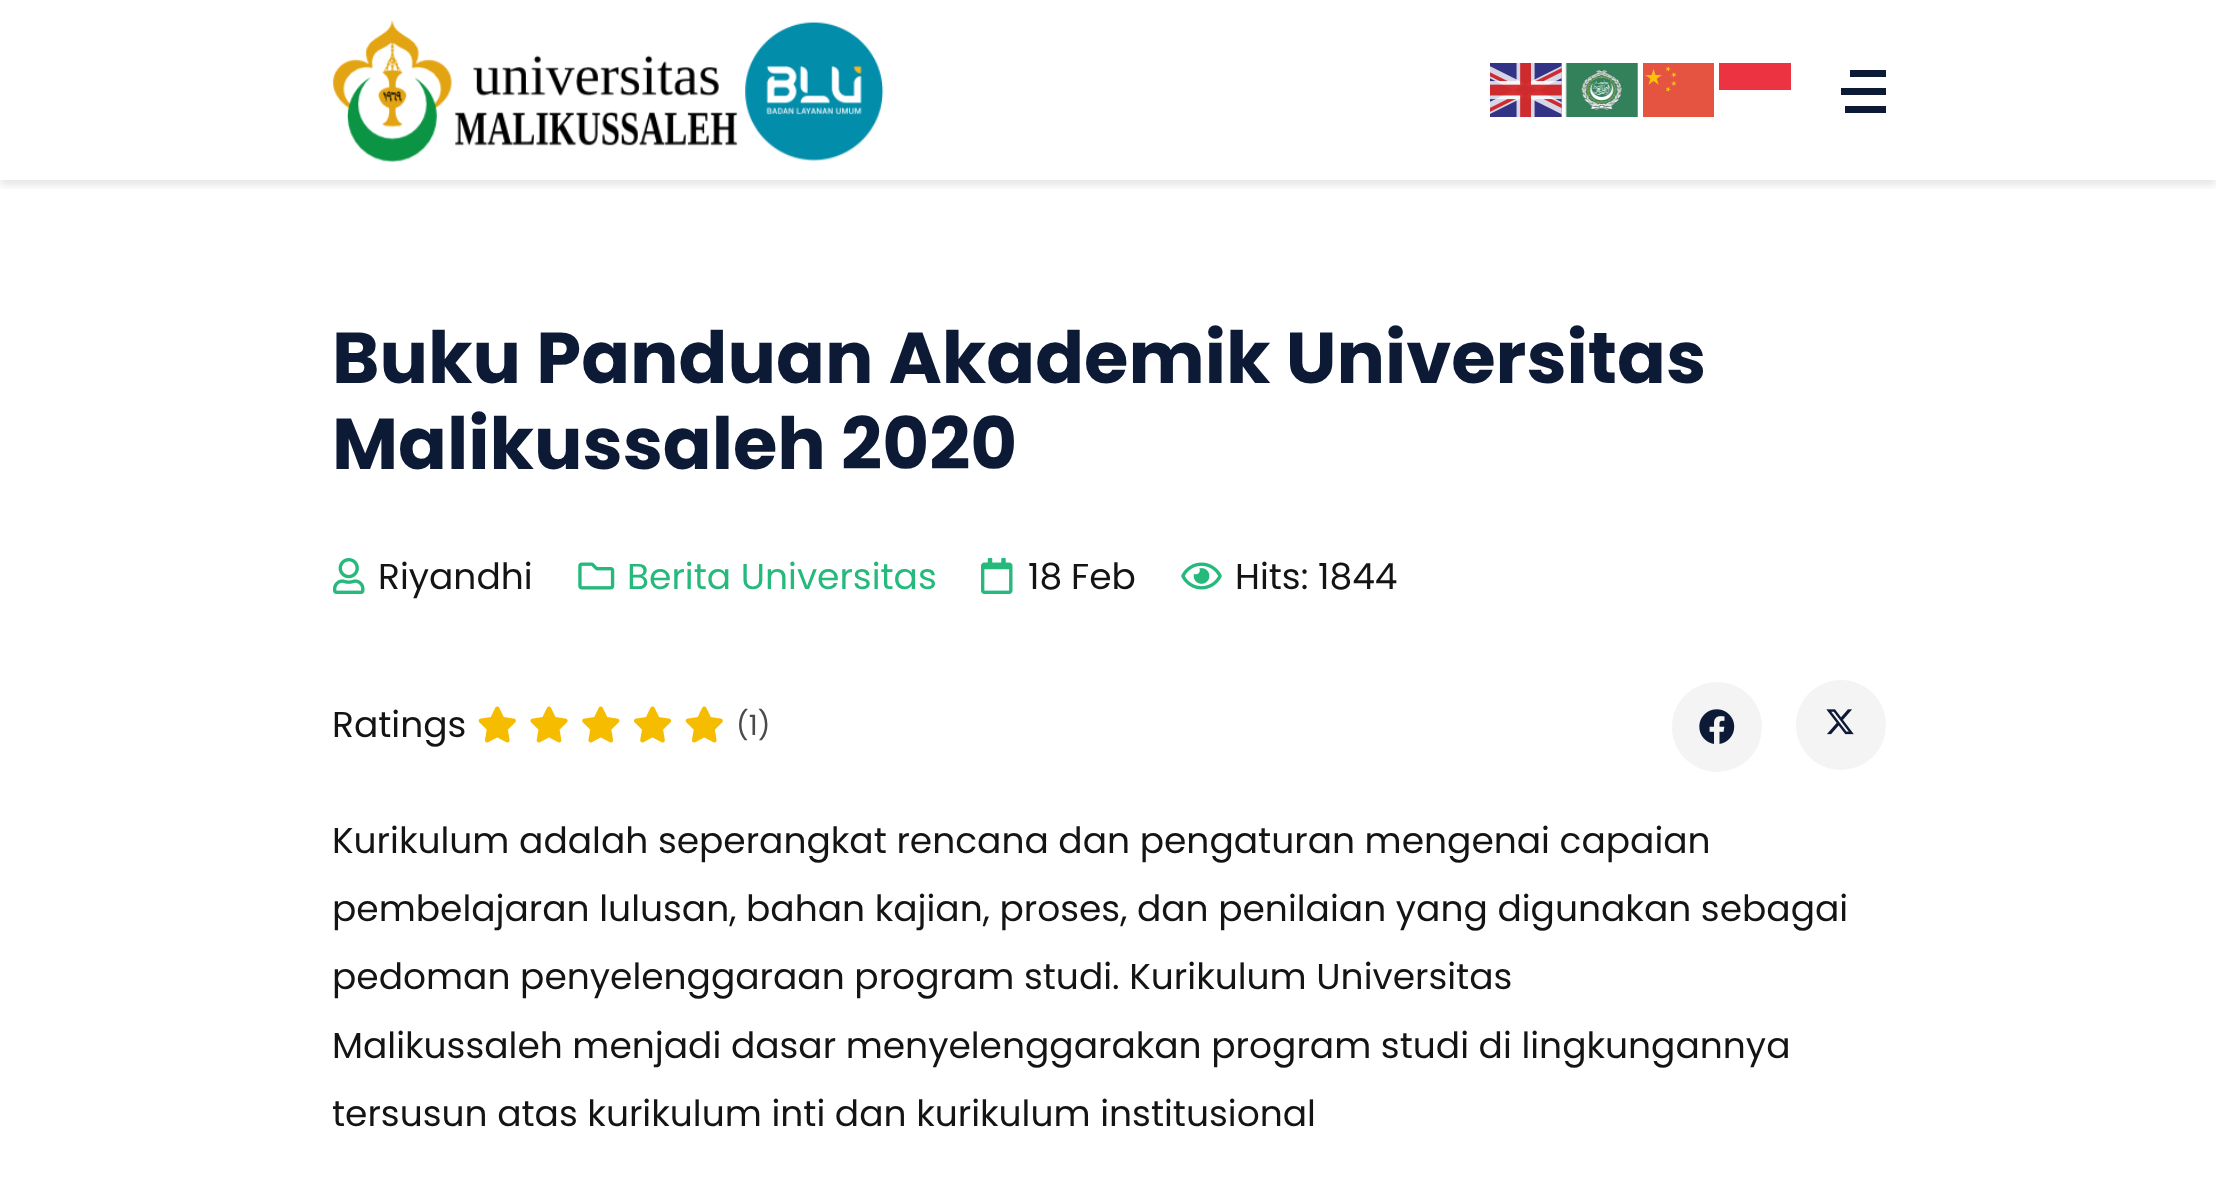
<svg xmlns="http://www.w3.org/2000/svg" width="2216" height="1201">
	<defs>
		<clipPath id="clip1"><rect x="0" y="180" width="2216" height="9" /></clipPath>
		<clipPath id="clip2"><rect x="333" y="808" width="1553" height="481" /></clipPath>
	</defs>
	<rect width="100%" height="100%" fill="#FFFFFF" />
	<g clip-path="url(#clip1)">
		<rect x="0" y="5" width="2216" height="180" fill="#000000" fill-opacity="0.1" filter="blur(4.5px)" />
	</g>
	<image x="332" y="20" width="552" height="142" href="assets/img1.png" />
	<image x="1490" y="63" width="72" height="54" href="assets/img2.png" />
	<image x="1565" y="63" width="73" height="54" href="assets/img3.png" />
	<image x="1643" y="63" width="71" height="54" href="assets/img4.png" />
	<rect x="1719" y="63" width="72" height="27" fill="#EC3341" />
	<rect x="1850" y="70" width="36" height="7" fill="#0C1A36" />
	<rect x="1841" y="88" width="45" height="7" fill="#0C1A36" />
	<rect x="1845" y="106" width="41" height="7" fill="#0C1A36" />
	<g font-family="Poppins" font-size="72" font-weight="700" fill="#0C1A36">
		<text x="332" y="383">Buku Panduan Akademik Universitas</text>
		<text x="332" y="469">Malikussaleh 2020</text>
	</g>
	<image x="333" y="558" width="32" height="36" href="assets/img5.png" />
	<text x="378" y="589" font-family="Poppins" font-size="36" fill="#141414">Riyandhi</text>
	<image x="578" y="562" width="37" height="28" href="assets/img6.png" />
	<text x="627" y="589" font-family="Poppins" font-size="36" fill="#25B97C">Berita Universitas</text>
	<image x="981" y="558" width="32" height="36" href="assets/img7.png" />
	<g font-family="Poppins" font-size="36" fill="#141414">
		<text x="1028" y="589">18</text>
		<text x="1071" y="589">Feb</text>
	</g>
	<image x="1181" y="562" width="41" height="28" href="assets/img8.png" />
	<g font-family="Poppins" font-size="36" fill="#141414">
		<text x="1235" y="589">Hits: 1844</text>
		<text x="332" y="737">Ratings</text>
	</g>
	<image x="478" y="706" width="38" height="37" href="assets/img9.png" />
	<image x="530" y="706" width="38" height="37" href="assets/img10.png" />
	<image x="582" y="706" width="38" height="37" href="assets/img11.png" />
	<image x="634" y="706" width="38" height="37" href="assets/img12.png" />
	<image x="685" y="706" width="38" height="37" href="assets/img9.png" />
	<text x="736" y="735" font-family="Poppins" font-size="28" fill="#4C4B4B">(1)</text>
	<circle cx="1717" cy="727" r="45" fill="#F4F4F4" />
	<image x="1699" y="709" width="36" height="35" href="assets/img13.png" />
	<circle cx="1841" cy="725" r="45" fill="#F4F4F4" />
	<image x="1826" y="709" width="28" height="26" href="assets/img14.png" />
	<g font-family="Poppins" font-size="36" fill="#141414">
		<text x="332" y="853">Kurikulum adalah seperangkat rencana dan pengaturan mengenai capaian</text>
		<text x="332" y="921">pembelajaran lulusan, bahan kajian, proses, dan penilaian yang digunakan sebagai</text>
		<text x="332" y="989">pedoman penyelenggaraan program studi. Kurikulum Universitas</text>
		<text x="332" y="1058">Malikussaleh menjadi dasar menyelenggarakan program studi di lingkungannya</text>
	</g>
	<g clip-path="url(#clip2)">
		<text x="332" y="1126" font-family="Poppins" font-size="36" fill="#141414">tersusun atas kurikulum inti dan kurikulum institusional</text>
	</g>
</svg>
